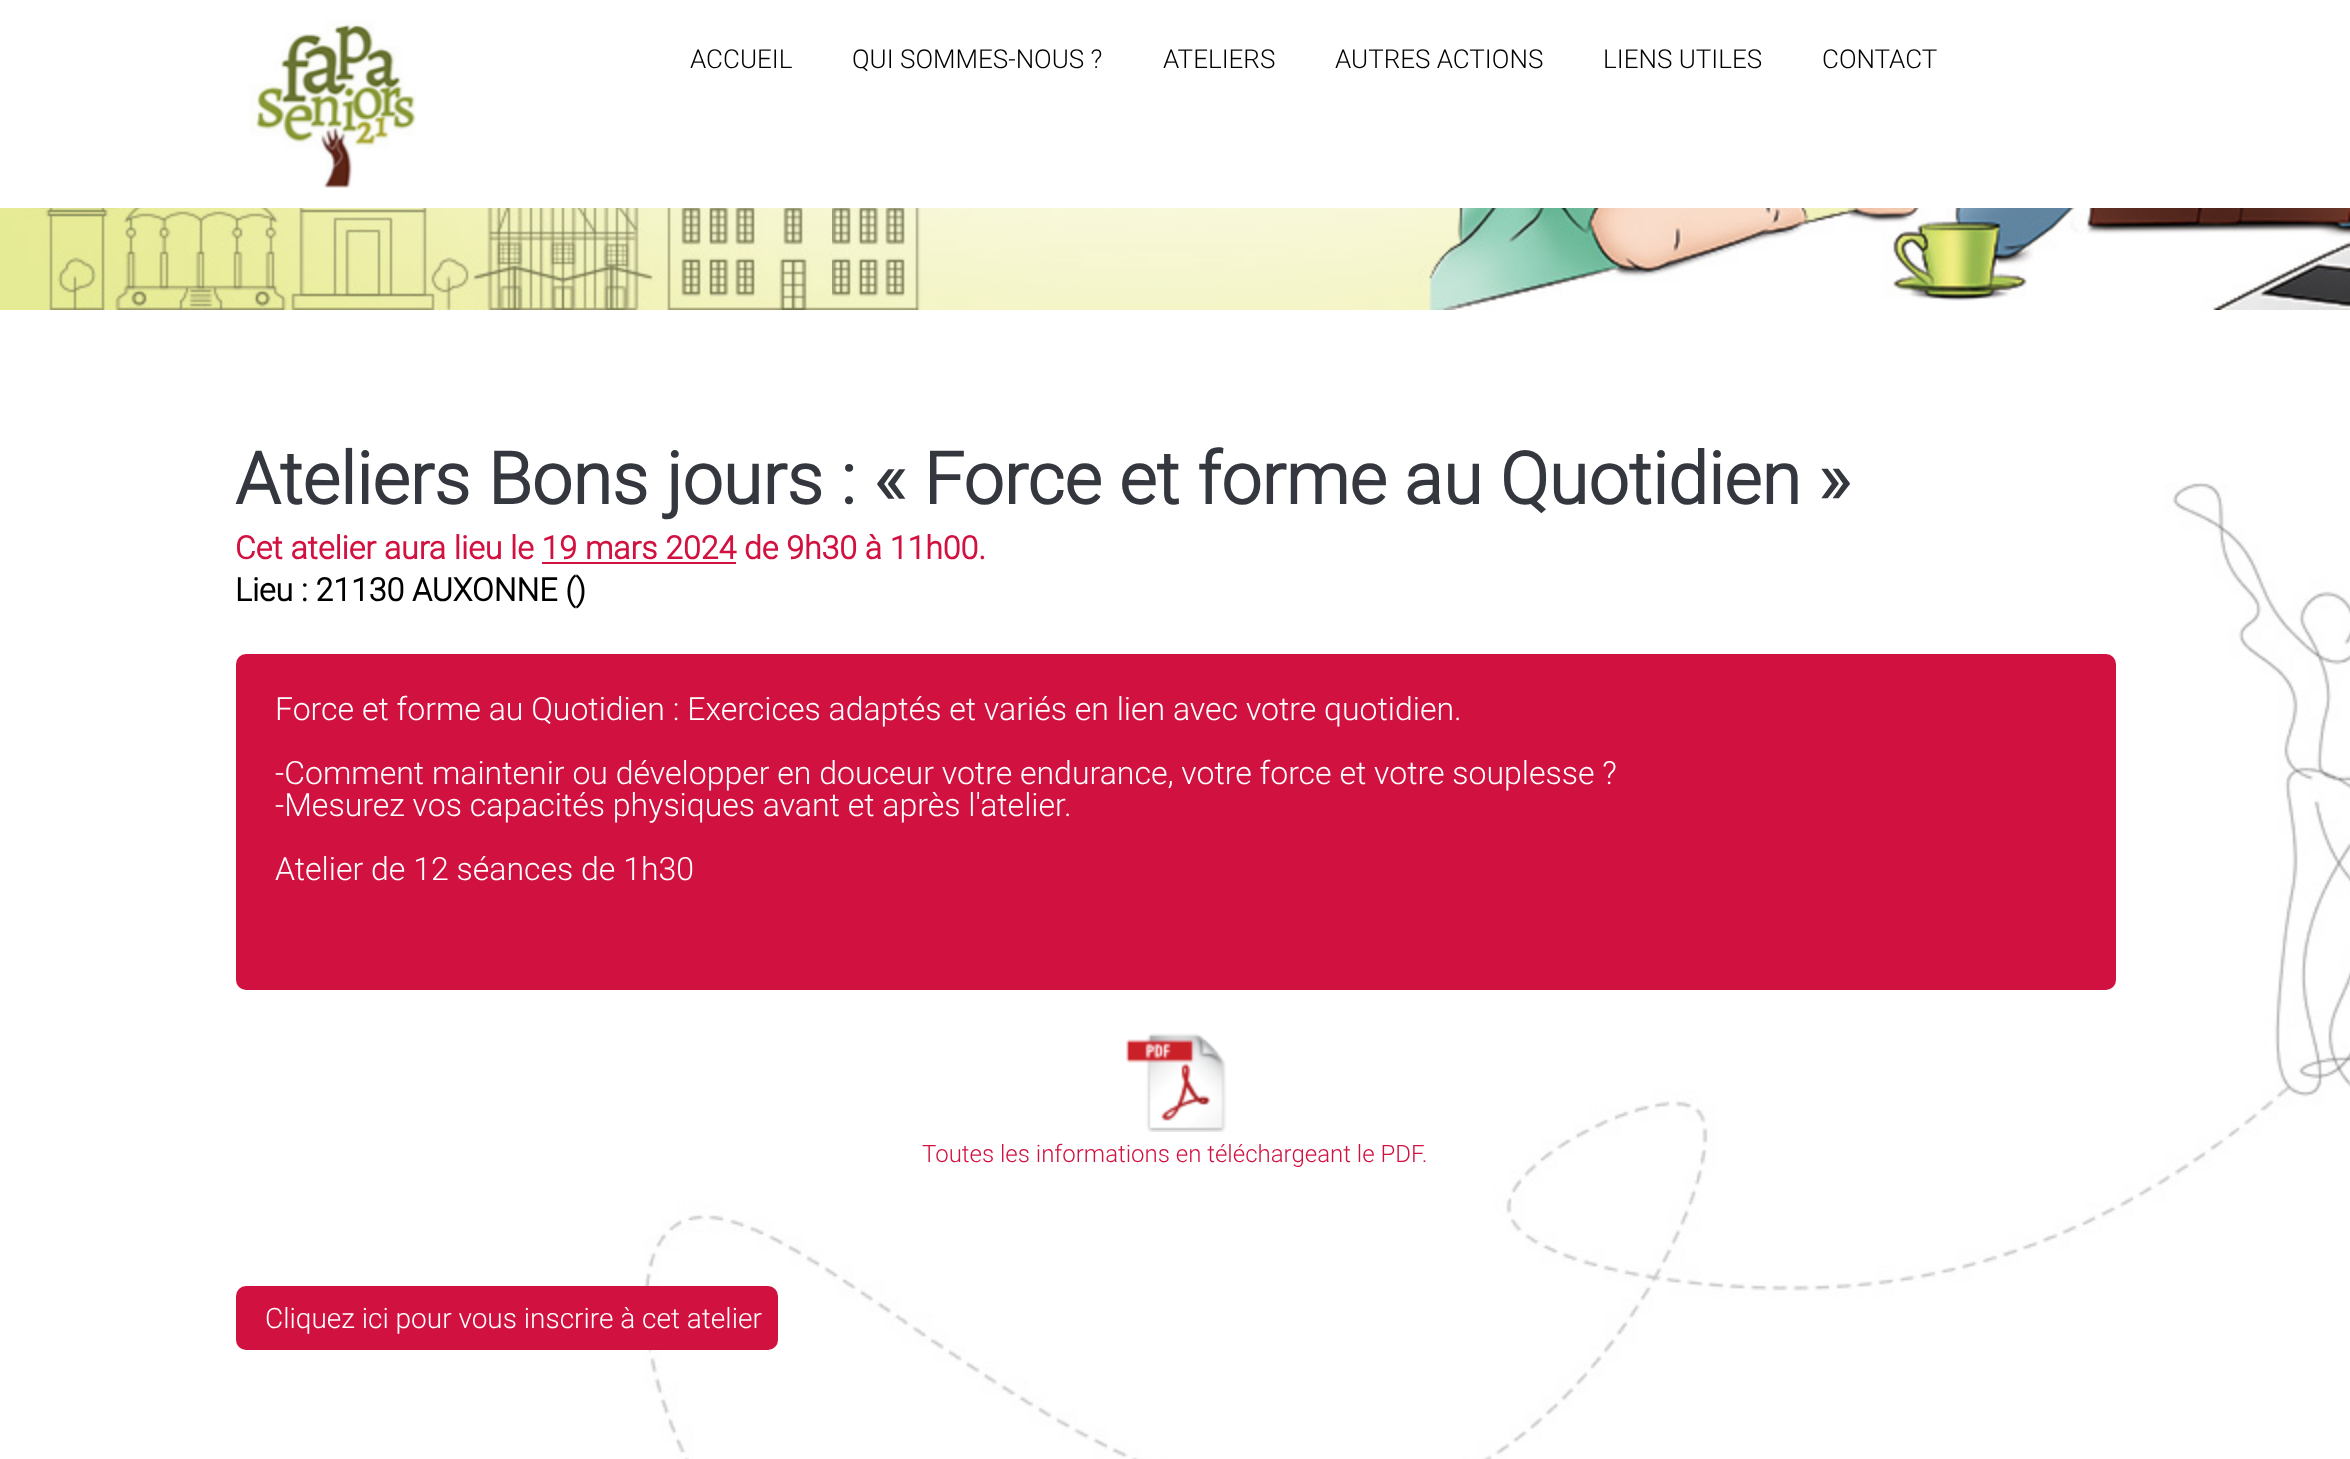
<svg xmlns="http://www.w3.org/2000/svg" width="2350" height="1459">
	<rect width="100%" height="100%" fill="#FFFFFF" />
	<image x="249" y="20" width="167" height="168" href="assets/img1.png" />
	<g font-family="Roboto" font-size="26" font-weight="300" fill="#000000">
		<text x="690" y="68">ACCUEIL</text>
		<text x="852" y="68">QUI SOMMES-NOUS ?</text>
		<text x="1163" y="68">ATELIERS</text>
		<text x="1335" y="68">AUTRES ACTIONS</text>
		<text x="1603" y="68">LIENS UTILES</text>
		<text x="1822" y="68">CONTACT</text>
	</g>
	<image x="0" y="208" width="2350" height="102" href="assets/img2.png" />
	<image x="644" y="482" width="1706" height="977" href="assets/img3.png" />
	<text x="235" y="504" font-family="Roboto" font-size="72" font-weight="700" fill="#34373E">Ateliers Bons jours : « Force et forme au Quotidien »</text>
	<text x="235" y="559" font-family="Roboto" font-size="32" font-weight="700" fill="#D11241">Cet atelier aura lieu le 19 mars 2024 de 9h30 à 11h00.</text>
	<rect x="542" y="562" width="194" height="2" fill="#D11241" />
	<text x="235" y="601" font-family="Roboto" font-size="32" font-weight="700" fill="#000000">Lieu : 21130 AUXONNE ()</text>
	<rect x="236" y="654" width="1880" height="336" rx="10" fill="#D11241" />
	<g font-family="Roboto" font-size="32" font-weight="300" fill="#FFFFFF">
		<text x="275" y="720">Force et forme au Quotidien : Exercices adaptés et variés en lien avec votre quotidien.</text>
		<text x="275" y="784">-Comment maintenir ou développer en douceur votre endurance, votre force et votre souplesse ?</text>
		<text x="275" y="816">-Mesurez vos capacités physiques avant et après l'atelier.</text>
		<text x="275" y="880">Atelier de 12 séances de 1h30</text>
	</g>
	<image x="1126" y="1033" width="100" height="99" href="assets/img4.png" />
	<text x="922" y="1162" font-family="Roboto" font-size="24" font-weight="300" fill="#D11241">Toutes les informations en téléchargeant le PDF.</text>
	<rect x="236" y="1286" width="542" height="64" rx="10" fill="#D11241" />
	<text x="265" y="1328" font-family="Roboto" font-size="28" font-weight="300" fill="#FFFFFF">Cliquez ici pour vous inscrire à cet atelier</text>
</svg>
